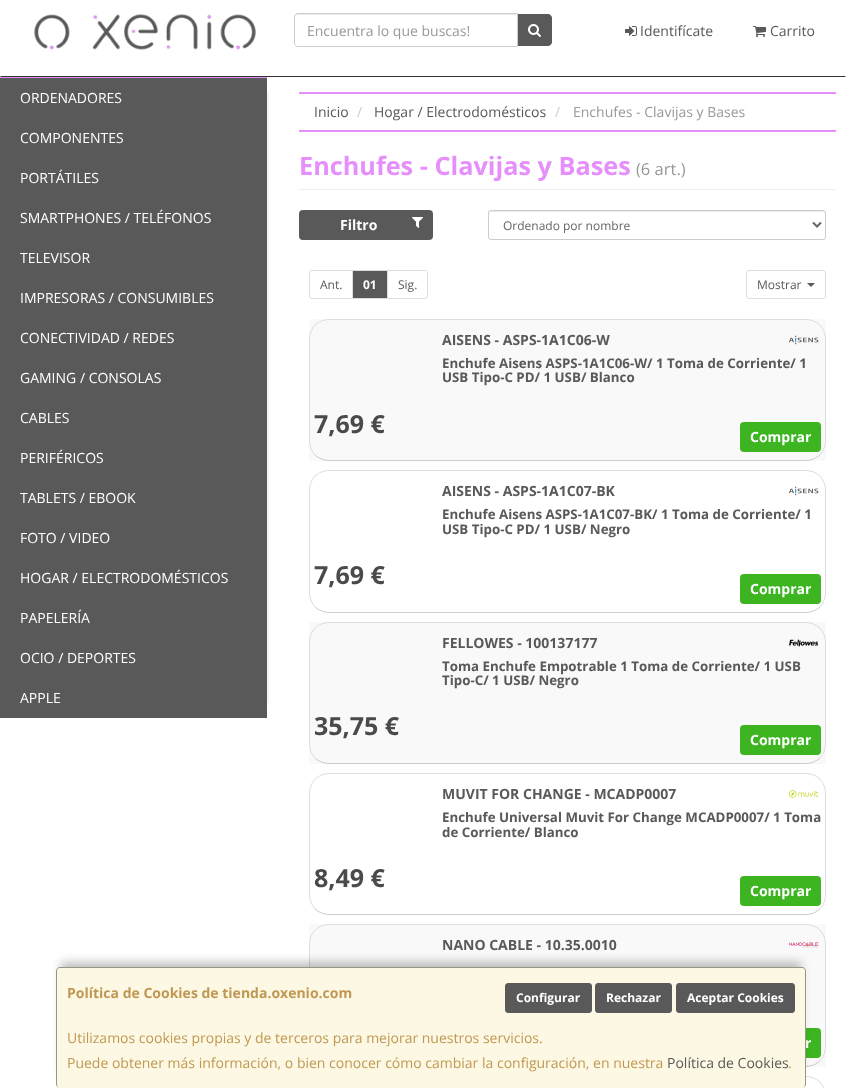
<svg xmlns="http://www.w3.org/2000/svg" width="861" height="1088">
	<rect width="100%" height="100%" fill="#FFFFFF" />
	<path d="M846 77H0L1 76H845Z" fill="#333333" />
	<image x="33" y="14" width="224" height="36" href="assets/img1.png" />
	<path d="M517.5 14.5H548C550 14.5 551.5 16 551.5 18V42C551.5 44 550 45.5 548 45.5H517.5Z" fill="#59595A" stroke="#59595A" />
	<path d="M298 13H518V47H298C296 47 294 45 294 43V17C294 15 296 13 298 13Z" fill="#FFFFFF" />
	<path d="M298 15H517V14H298C296 14 295 16 295 18C295 16 296 15 298 15Z" fill="#ECECEC" />
	<path d="M298 13.5H517.5V46.5H298C296 46.5 294.5 45 294.5 43V17C294.5 15 296 13.5 298 13.5Z" fill="none" stroke="#CCCCCC" />
	<text x="307" y="36" font-family="Open Sans" font-size="14" fill="#999999">Encuentra lo que buscas!</text>
	<image x="528" y="24" width="13" height="13" href="assets/img2.png" />
	<image x="625" y="26" width="12" height="10" href="assets/img3.png" />
	<text x="640" y="36" font-family="Open Sans" font-size="14" fill="#59595A">Identifícate</text>
	<image x="753" y="26" width="13" height="11" href="assets/img4.png" />
	<text x="770" y="36" font-family="Open Sans" font-size="14" fill="#59595A">Carrito</text>
	<rect x="267" y="92" width="2" height="611" fill="#F5F5F5" />
	<rect x="0" y="78" width="267" height="640" fill="#59595A" />
	<rect x="0" y="77" width="267" height="1" fill="#E68FFC" />
	<g font-family="Open Sans" font-size="14" fill="#FFFFFF">
		<text x="20" y="103">ORDENADORES</text>
		<text x="20" y="143">COMPONENTES</text>
		<text x="20" y="183">PORTÁTILES</text>
		<text x="20" y="223">SMARTPHONES / TELÉFONOS</text>
		<text x="20" y="263">TELEVISOR</text>
		<text x="20" y="303">IMPRESORAS / CONSUMIBLES</text>
		<text x="20" y="343">CONECTIVIDAD / REDES</text>
		<text x="20" y="383">GAMING / CONSOLAS</text>
		<text x="20" y="423">CABLES</text>
		<text x="20" y="463">PERIFÉRICOS</text>
		<text x="20" y="503">TABLETS / EBOOK</text>
		<text x="20" y="543">FOTO / VIDEO</text>
		<text x="20" y="583">HOGAR / ELECTRODOMÉSTICOS</text>
		<text x="20" y="623">PAPELERÍA</text>
		<text x="20" y="663">OCIO / DEPORTES</text>
		<text x="20" y="703">APPLE</text>
	</g>
	<rect x="299" y="92" width="537" height="2" fill="#E68FFC" />
	<rect x="299" y="130" width="537" height="2" fill="#E68FFC" />
	<text x="314" y="117" font-family="Open Sans" font-size="14" fill="#59595A">Inicio</text>
	<text x="357" y="117" font-family="Open Sans" font-size="14" fill="#CCCCCC">/</text>
	<text x="374" y="117" font-family="Open Sans" font-size="14" fill="#59595A">Hogar / Electrodomésticos</text>
	<text x="555" y="117" font-family="Open Sans" font-size="14" fill="#CCCCCC">/</text>
	<text x="573" y="117" font-family="Open Sans" font-size="14" fill="#999999">Enchufes - Clavijas y Bases</text>
	<rect x="299" y="189" width="537" height="1" fill="#EEEEEE" />
	<text x="299" y="175" font-family="Open Sans" font-size="25.25" font-weight="700" fill="#E68FFC">Enchufes - Clavijas y Bases</text>
	<text x="636" y="175" font-family="Open Sans" font-size="16.5" fill="#999999">(6 art.)</text>
	<rect x="299" y="210" width="134" height="30" rx="4" fill="#59595A" />
	<text x="340" y="230" font-family="Open Sans" font-size="14" font-weight="700" fill="#FFFFFF">Filtro</text>
	<image x="412" y="217" width="11" height="11" href="assets/img5.png" />
	<path d="M491 212H823L825 213C825 212 824 211 823 211H491C490 211 489 212 489 213C489 212 490 212 491 212ZM489 238V237Z" fill="#ECECEC" fill-rule="evenodd" />
	<rect x="488.5" y="210.5" width="337" height="29" rx="2.5" fill="none" stroke="#CCCCCC" />
	<path d="M813 222.5L817 226.5L821 222.5" fill="none" stroke="#666666" stroke-width="2" />
	<text x="503" y="230" font-family="Open Sans" font-size="12" fill="#666666">Ordenado por nombre</text>
	<path d="M312 270.5H352.5V298.5H312C310.5 298.5 309.5 297.5 309.5 296V273C309.5 271.5 310.5 270.5 312 270.5Z" fill="none" stroke="#DDDDDD" />
	<text x="320" y="289" font-family="Open Sans" font-size="12" fill="#59595A">Ant.</text>
	<path d="M387.5 270.5H425C426.5 270.5 427.5 271.5 427.5 273V296C427.5 297.5 426.5 298.5 425 298.5H387.5Z" fill="none" stroke="#DDDDDD" />
	<rect x="352.5" y="270.5" width="35" height="28" fill="#59595A" stroke="#DDDDDD" />
	<text x="363" y="289" font-family="Open Sans" font-size="12" font-weight="700" fill="#FFFFFF">01</text>
	<text x="398" y="289" font-family="Open Sans" font-size="12" fill="#59595A">Sig.</text>
	<rect x="746.5" y="270.5" width="79" height="28" rx="2.5" fill="none" stroke="#DDDDDD" />
	<text x="757" y="289" font-family="Open Sans" font-size="12" fill="#59595A">Mostrar</text>
	<path d="M807 283H815L811 287Z" fill="#59595A" />
	<path d="M313 319H822C824 319 826 321 826 323V461H309V323C309 321 311 319 313 319Z" fill="#F9F9F9" />
	<path d="M820 455C816 458.5 811 460.5 806 460.5H329C324 460.5 319 458.5 315 455" fill="none" stroke="#CCCCCC" />
	<path d="M315 455C311.5 451 309.5 446 309.5 441V339C309.5 334 311.5 329 315 325C319 321.5 324 319.5 329 319.5H806C811 319.5 816 321.5 820 325C823.5 329 825.5 334 825.5 339V441C825.5 446 823.5 451 820 455" fill="none" stroke="#DDDDDD" />
	<text x="442" y="345" font-family="Open Sans" font-size="14" font-weight="700" fill="#59595A">AISENS - ASPS-1A1C06-W</text>
	<g font-family="Open Sans" font-size="13.3" font-weight="700" fill="#59595A">
		<text x="442" y="368">Enchufe Aisens ASPS-1A1C06-W/ 1 Toma de Corriente/ 1</text>
		<text x="442" y="382">USB Tipo-C PD/ 1 USB/ Blanco</text>
	</g>
	<text x="314" y="433" font-family="Open Sans" font-size="25" font-weight="700" fill="#4A4A4A">7,69 €</text>
	<rect x="740" y="422" width="81" height="30" rx="4" fill="#3CB521" />
	<text x="750" y="442" font-family="Open Sans" font-size="14" font-weight="700" fill="#FFFFFF">Comprar</text>
	<image x="789" y="335" width="30" height="10" href="assets/img6.png" />
	<path d="M820 607C816 610.5 811 612.5 806 612.5H329C324 612.5 319 610.5 315 607" fill="none" stroke="#CCCCCC" />
	<path d="M315 607C311.5 603 309.5 598 309.5 593V490C309.5 485 311.5 480 315 476C319 472.5 324 470.5 329 470.5H806C811 470.5 816 472.5 820 476C823.5 480 825.5 485 825.5 490V593C825.5 598 823.5 603 820 607" fill="none" stroke="#DDDDDD" />
	<text x="442" y="496" font-family="Open Sans" font-size="14" font-weight="700" fill="#59595A">AISENS - ASPS-1A1C07-BK</text>
	<g font-family="Open Sans" font-size="13.3" font-weight="700" fill="#59595A">
		<text x="442" y="519">Enchufe Aisens ASPS-1A1C07-BK/ 1 Toma de Corriente/ 1</text>
		<text x="442" y="534">USB Tipo-C PD/ 1 USB/ Negro</text>
	</g>
	<text x="314" y="584" font-family="Open Sans" font-size="25" font-weight="700" fill="#4A4A4A">7,69 €</text>
	<rect x="740" y="574" width="81" height="30" rx="4" fill="#3CB521" />
	<text x="750" y="594" font-family="Open Sans" font-size="14" font-weight="700" fill="#FFFFFF">Comprar</text>
	<image x="789" y="486" width="30" height="10" href="assets/img7.png" />
	<rect x="309" y="622" width="517" height="142" fill="#F9F9F9" />
	<path d="M820 758C816 761.5 811 763.5 806 763.5H329C324 763.5 319 761.5 315 758" fill="none" stroke="#CCCCCC" />
	<path d="M315 758C311.5 754 309.5 749 309.5 744V642C309.5 637 311.5 632 315 628C319 624.5 324 622.5 329 622.5H806C811 622.5 816 624.5 820 628C823.5 632 825.5 637 825.5 642V744C825.5 749 823.5 754 820 758" fill="none" stroke="#DDDDDD" />
	<text x="442" y="648" font-family="Open Sans" font-size="14" font-weight="700" fill="#59595A">FELLOWES - 100137177</text>
	<g font-family="Open Sans" font-size="13.3" font-weight="700" fill="#59595A">
		<text x="442" y="671">Toma Enchufe Empotrable 1 Toma de Corriente/ 1 USB</text>
		<text x="442" y="685">Tipo-C/ 1 USB/ Negro</text>
	</g>
	<text x="314" y="735" font-family="Open Sans" font-size="25" font-weight="700" fill="#4A4A4A">35,75 €</text>
	<rect x="740" y="725" width="81" height="30" rx="4" fill="#3CB521" />
	<text x="750" y="745" font-family="Open Sans" font-size="14" font-weight="700" fill="#FFFFFF">Comprar</text>
	<image x="789" y="639" width="30" height="8" href="assets/img8.png" />
	<path d="M820 909C816 912.5 811 914.5 806 914.5H329C324 914.5 319 912.5 315 909" fill="none" stroke="#CCCCCC" />
	<path d="M315 909C311.5 905 309.5 900 309.5 895V793C309.5 788 311.5 783 315 779C319 775.5 324 773.5 329 773.5H806C811 773.5 816 775.5 820 779C823.5 783 825.5 788 825.5 793V895C825.5 900 823.5 905 820 909" fill="none" stroke="#DDDDDD" />
	<text x="442" y="799" font-family="Open Sans" font-size="14" font-weight="700" fill="#59595A">MUVIT FOR CHANGE - MCADP0007</text>
	<g font-family="Open Sans" font-size="13.3" font-weight="700" fill="#59595A">
		<text x="442" y="822">Enchufe Universal Muvit For Change MCADP0007/ 1 Toma</text>
		<text x="442" y="837">de Corriente/ Blanco</text>
	</g>
	<text x="314" y="887" font-family="Open Sans" font-size="25" font-weight="700" fill="#4A4A4A">8,49 €</text>
	<rect x="740" y="876" width="81" height="30" rx="4" fill="#3CB521" />
	<text x="750" y="896" font-family="Open Sans" font-size="14" font-weight="700" fill="#FFFFFF">Comprar</text>
	<image x="789" y="790" width="30" height="8" href="assets/img9.png" />
	<rect x="309" y="924" width="517" height="143" fill="#F9F9F9" />
	<path d="M820 1061C816 1064.5 811 1066.5 806 1066.5H329C324 1066.5 319 1064.5 315 1061" fill="none" stroke="#CCCCCC" />
	<path d="M315 1061C311.5 1057 309.5 1052 309.5 1047V944C309.5 939 311.5 934 315 930C319 926.5 324 924.5 329 924.5H806C811 924.5 816 926.5 820 930C823.5 934 825.5 939 825.5 944V1047C825.5 1052 823.5 1057 820 1061" fill="none" stroke="#DDDDDD" />
	<text x="442" y="950" font-family="Open Sans" font-size="14" font-weight="700" fill="#59595A">NANO CABLE - 10.35.0010</text>
	<rect x="740" y="1028" width="81" height="30" rx="4" fill="#3CB521" />
	<text x="805" y="1048" font-family="Open Sans" font-size="14" font-weight="700" fill="#FFFFFF">r</text>
	<image x="789" y="942" width="30" height="6" href="assets/img10.png" />
	<path d="M315 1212C311.5 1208 309.5 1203 309.5 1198V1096C309.5 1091 311.5 1086 315 1082C319 1078.5 324 1076.5 329 1076.5H806C811 1076.5 816 1078.5 820 1082C823.5 1086 825.5 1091 825.5 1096V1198C825.5 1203 823.5 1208 820 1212" fill="none" stroke="#DDDDDD" />
	<rect x="61" y="962" width="740" height="111" fill="#000000" fill-opacity="0.25" filter="blur(5px)" />
	<rect x="56" y="967" width="750" height="121" rx="4" fill="#FCF8E3" />
	<path d="M60 967H802C804 967 806 969 806 971V1084C806 1086 804 1088 802 1088H60C58 1088 56 1086 56 1084V971C56 969 58 967 60 967ZM60 968H802C804 968 805 969 805 971V1084C805 1086 804 1088 802 1088H60C58 1088 57 1086 57 1084V971C57 969 58 968 60 968Z" fill="#000000" fill-opacity="0.4" fill-rule="evenodd" />
	<text x="67" y="998" font-family="Open Sans" font-size="14" font-weight="700" fill="#C09853">Política de Cookies de tienda.oxenio.com</text>
	<rect x="505.5" y="983.5" width="86" height="29" rx="2.5" fill="#59595A" stroke="#59595A" />
	<text x="516" y="1002" font-family="Open Sans" font-size="12" font-weight="700" fill="#FFFFFF">Configurar</text>
	<rect x="595.5" y="983.5" width="76" height="29" rx="2.5" fill="#59595A" stroke="#59595A" />
	<text x="606" y="1002" font-family="Open Sans" font-size="12" font-weight="700" fill="#FFFFFF">Rechazar</text>
	<rect x="676.5" y="983.5" width="118" height="29" rx="2.5" fill="#59595A" stroke="#59595A" />
	<text x="687" y="1002" font-family="Open Sans" font-size="12" font-weight="700" fill="#FFFFFF">Aceptar Cookies</text>
	<g font-family="Open Sans" font-size="14" fill="#C09853">
		<text x="67" y="1043">Utilizamos cookies propias y de terceros para mejorar nuestros servicios.</text>
		<text x="67" y="1068">Puede obtener más información, o bien conocer cómo cambiar la configuración, en nuestra</text>
	</g>
	<text x="667" y="1068" font-family="Open Sans" font-size="14" fill="#59595A">Política de Cookies</text>
	<text x="788" y="1068" font-family="Open Sans" font-size="14" fill="#C09853">.</text>
</svg>
